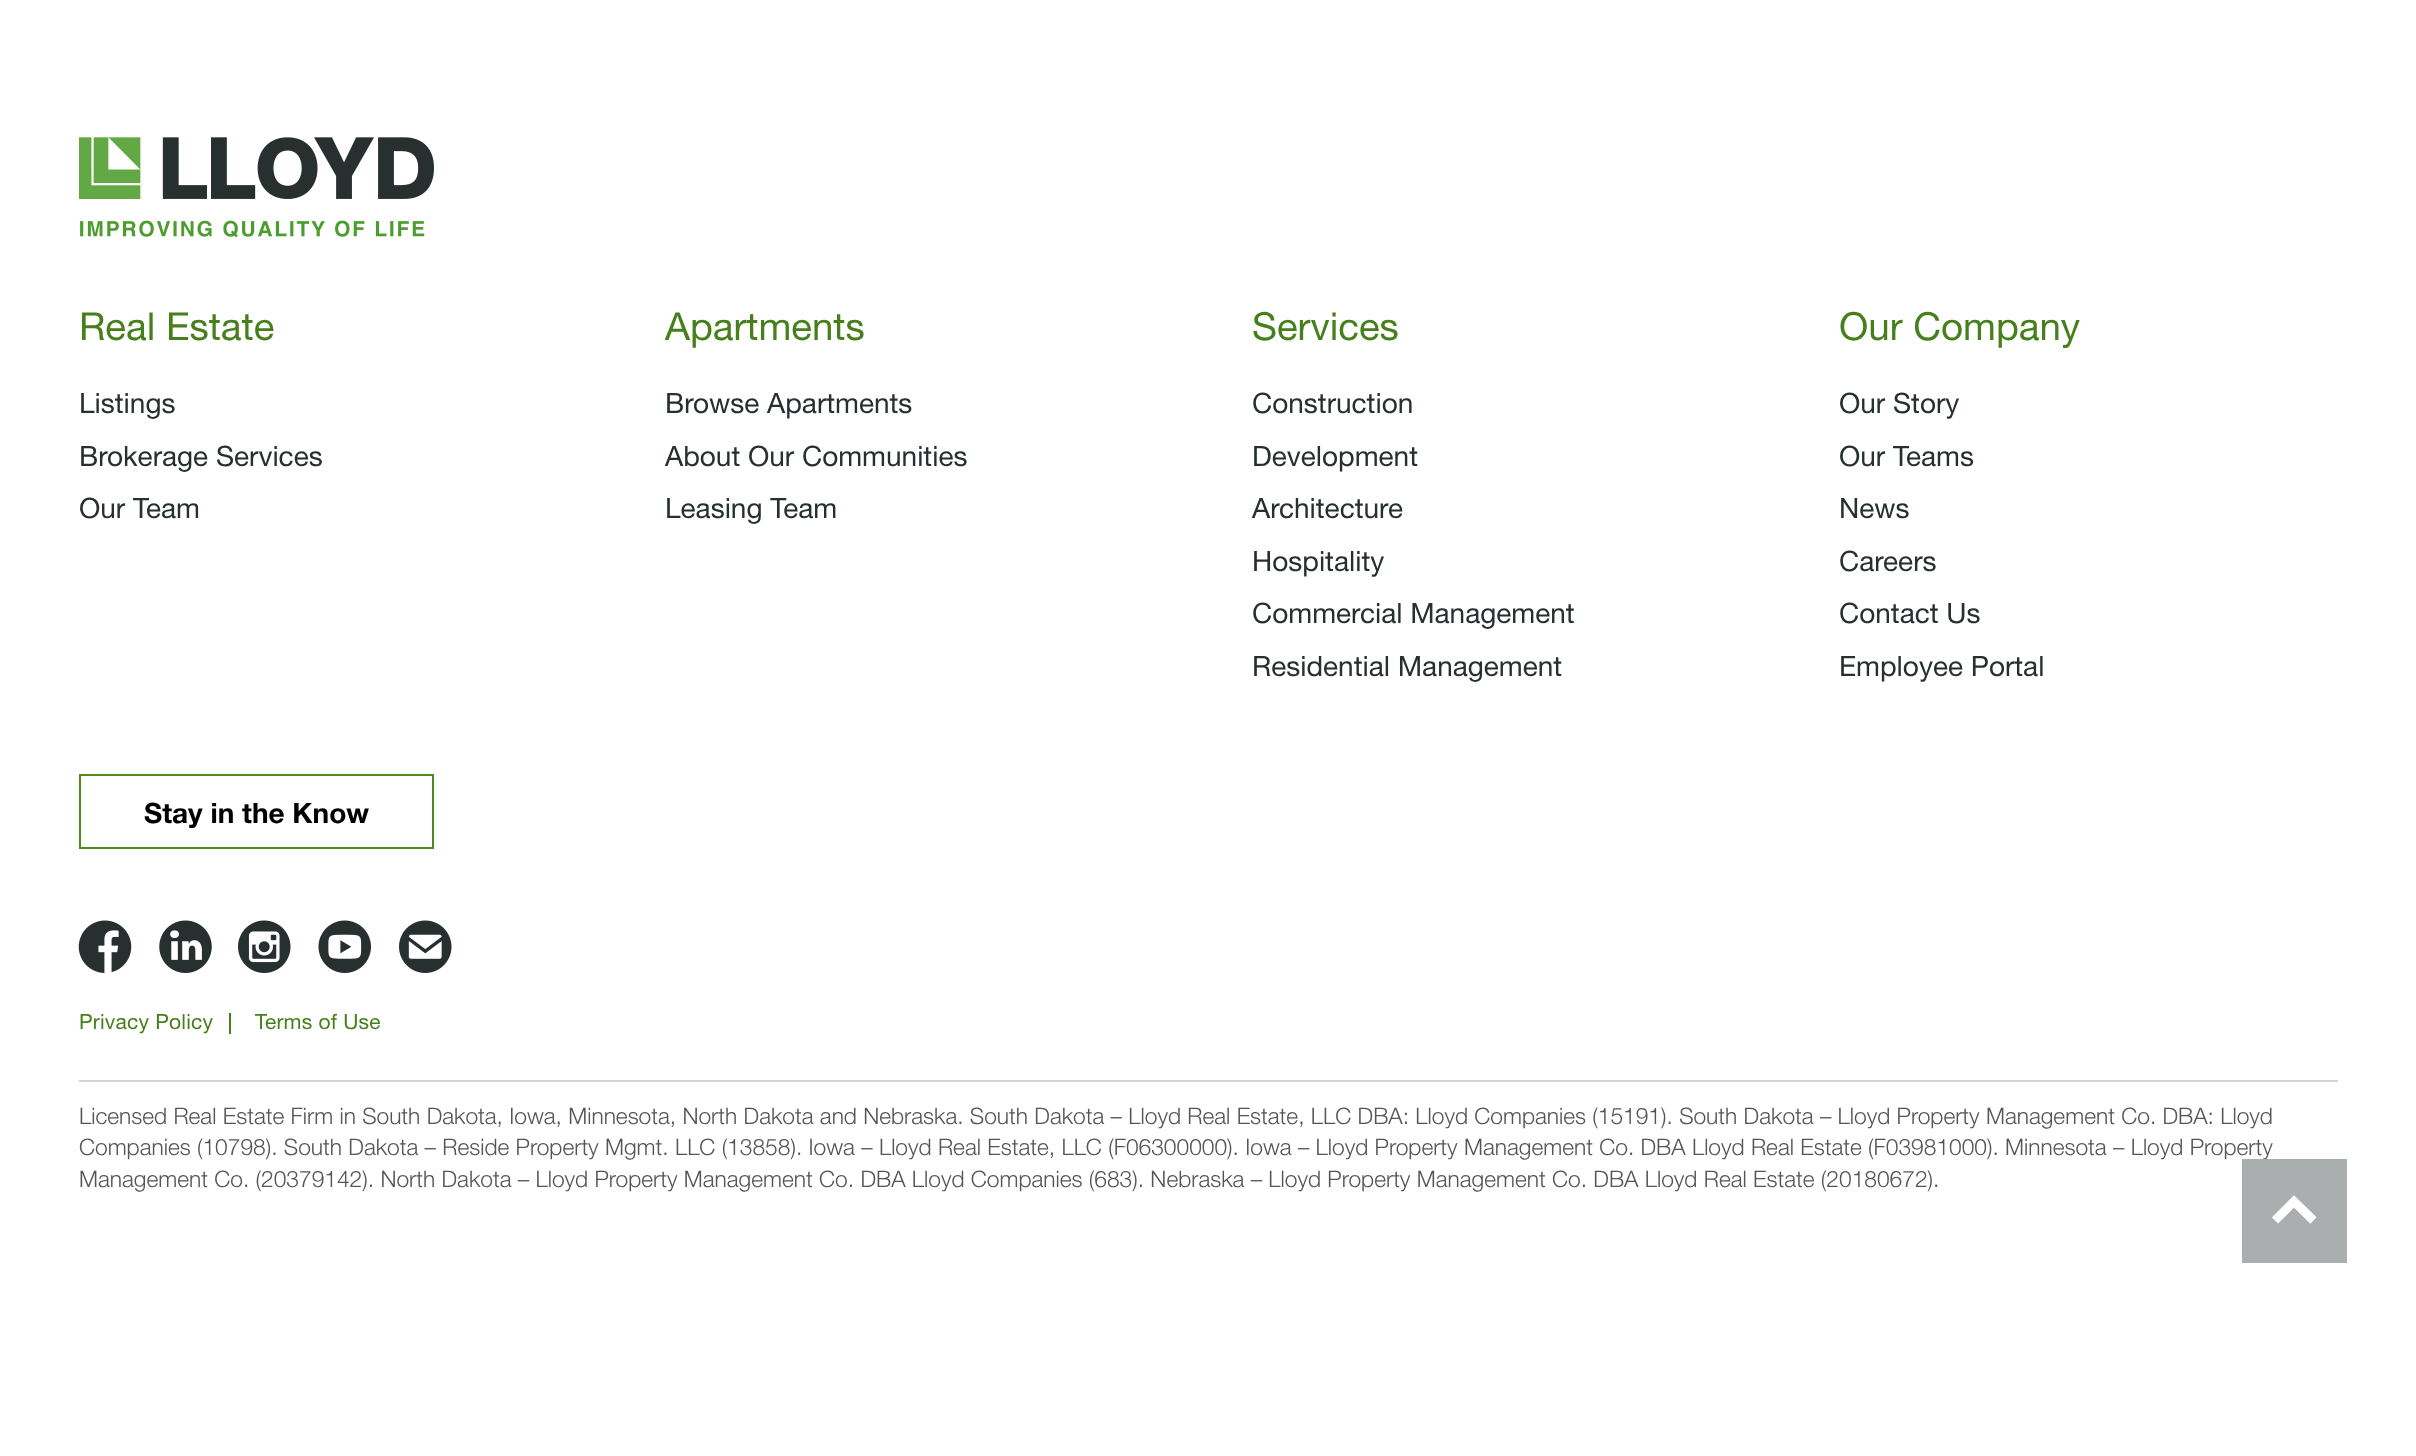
<svg xmlns="http://www.w3.org/2000/svg" width="2416" height="1456">
	<rect width="100%" height="100%" fill="#FFFFFF" />
	<text x="79" y="340" font-family="Helvetica Neue" font-size="38.5" fill="#467F1B">Real Estate</text>
	<g font-family="Helvetica Neue" font-size="28" fill="#282F2F">
		<text x="79" y="413">Listings</text>
		<text x="79" y="466">Brokerage Services</text>
		<text x="79" y="518">Our Team</text>
	</g>
	<text x="665" y="340" font-family="Helvetica Neue" font-size="38.5" fill="#467F1B">Apartments</text>
	<g font-family="Helvetica Neue" font-size="28" fill="#282F2F">
		<text x="665" y="413">Browse Apartments</text>
		<text x="665" y="466">About Our Communities</text>
		<text x="665" y="518">Leasing Team</text>
	</g>
	<text x="1252" y="340" font-family="Helvetica Neue" font-size="38.5" fill="#467F1B">Services</text>
	<g font-family="Helvetica Neue" font-size="28" fill="#282F2F">
		<text x="1252" y="413">Construction</text>
		<text x="1252" y="466">Development</text>
		<text x="1252" y="518">Architecture</text>
		<text x="1252" y="571">Hospitality</text>
		<text x="1252" y="623">Commercial Management</text>
		<text x="1252" y="676">Residential Management</text>
	</g>
	<text x="1839" y="340" font-family="Helvetica Neue" font-size="38.5" fill="#467F1B">Our Company</text>
	<g font-family="Helvetica Neue" font-size="28" fill="#282F2F">
		<text x="1839" y="413">Our Story</text>
		<text x="1839" y="466">Our Teams</text>
		<text x="1839" y="518">News</text>
		<text x="1839" y="571">Careers</text>
		<text x="1839" y="623">Contact Us</text>
		<text x="1839" y="676">Employee Portal</text>
	</g>
	<image x="79" y="137" width="355" height="101" href="assets/img1.png" />
	<rect x="80" y="775" width="353" height="73" fill="none" stroke="#4C8C1E" stroke-width="2" />
	<text x="144" y="823" font-family="Helvetica Neue" font-size="28" font-weight="700" fill="#000000">Stay in the Know</text>
	<image x="78" y="920" width="54" height="53" href="assets/img2.png" />
	<image x="159" y="920" width="53" height="53" href="assets/img3.png" />
	<image x="238" y="920" width="53" height="53" href="assets/img4.png" />
	<image x="318" y="920" width="53" height="53" href="assets/img5.png" />
	<image x="399" y="920" width="53" height="53" href="assets/img6.png" />
	<text x="79" y="1029" font-family="Helvetica Neue" font-size="21" letter-spacing="0.2" fill="#467F1B">Privacy Policy</text>
	<rect x="229" y="1013" width="2" height="21" fill="#467F1B" />
	<text x="255" y="1029" font-family="Helvetica Neue" font-size="21" letter-spacing="0.2" fill="#467F1B">Terms of Use</text>
	<rect x="79" y="1080" width="2259" height="2" fill="#D4D5D5" />
	<g font-family="Helvetica Neue" font-size="22.75" font-weight="300" fill="#555555">
		<text x="79" y="1124">Licensed Real Estate Firm in South Dakota, Iowa, Minnesota, North Dakota and Nebraska. South Dakota – Lloyd Real Estate, LLC DBA: Lloyd Companies (15191). South Dakota – Lloyd Property Management Co. DBA: Lloyd</text>
		<text x="79" y="1155">Companies (10798). South Dakota – Reside Property Mgmt. LLC (13858). Iowa – Lloyd Real Estate, LLC (F06300000). Iowa – Lloyd Property Management Co. DBA Lloyd Real Estate (F03981000). Minnesota – Lloyd Property</text>
		<text x="79" y="1187">Management Co. (20379142). North Dakota – Lloyd Property Management Co. DBA Lloyd Companies (683). Nebraska – Lloyd Property Management Co. DBA Lloyd Real Estate (20180672).</text>
	</g>
	<rect x="2242" y="1159" width="105" height="104" fill="#ABAEAE" />
	<path d="M2275 1220.5L2294 1201.5L2313.5 1220.5" fill="none" stroke="#FFFFFF" stroke-width="8.8" />
</svg>
